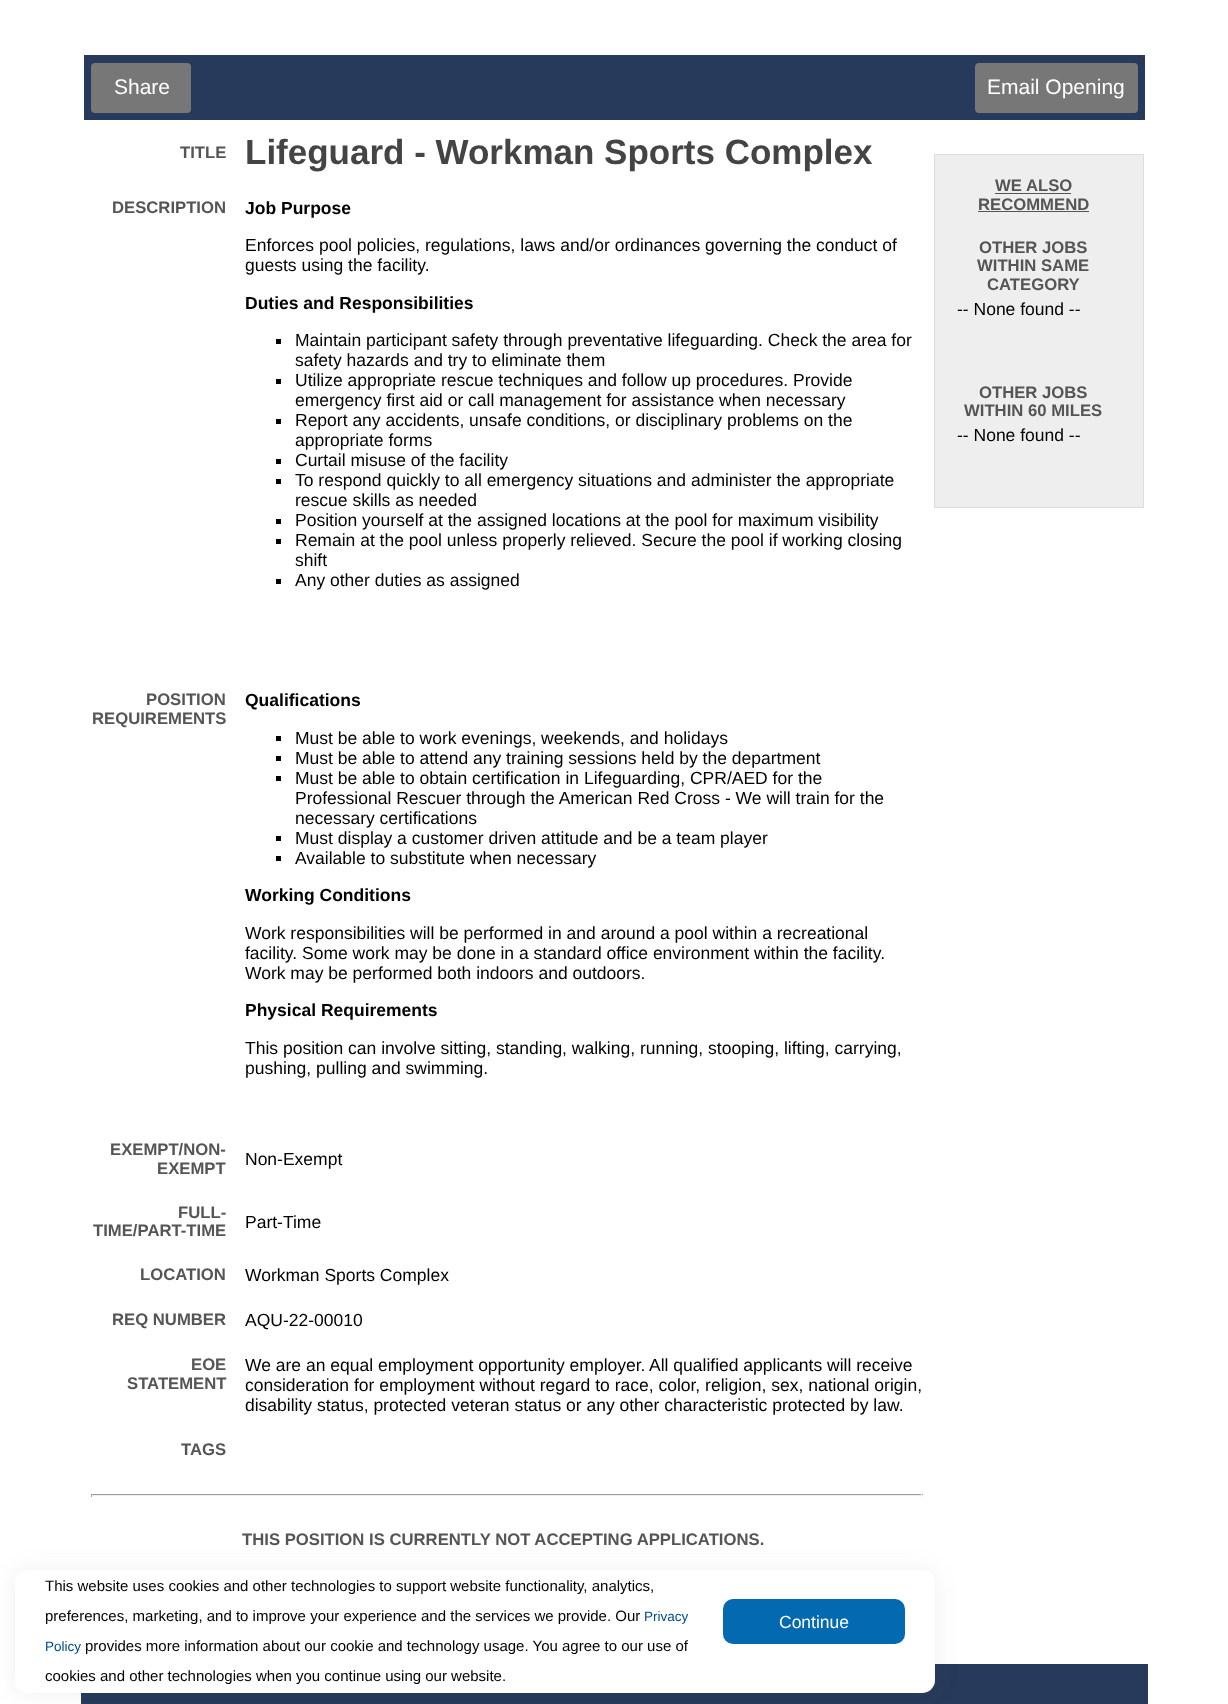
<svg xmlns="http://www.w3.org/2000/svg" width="1228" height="1704">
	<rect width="100%" height="100%" fill="#FFFFFF" />
	<rect x="84" y="55" width="1061" height="65" fill="#273A5B" />
	<rect x="91" y="63" width="100" height="50" rx="4" fill="#777777" />
	<text x="114" y="94" font-family="Liberation Sans" font-size="21" fill="#FFFFFF">Share</text>
	<rect x="975" y="63" width="163" height="50" rx="4" fill="#777777" />
	<text x="987" y="94" font-family="Liberation Sans" font-size="21" fill="#FFFFFF">Email Opening</text>
	<text x="180" y="158" font-family="Liberation Sans" font-size="16.7" font-weight="700" fill="#555555">TITLE</text>
	<text x="245" y="164" font-family="Liberation Sans" font-size="35" font-weight="700" fill="#444444">Lifeguard - Workman Sports Complex</text>
	<text x="112" y="213" font-family="Liberation Sans" font-size="16.7" font-weight="700" fill="#555555">DESCRIPTION</text>
	<text x="245" y="214" font-family="Liberation Sans" font-size="17.5" font-weight="700" fill="#000000">Job Purpose</text>
	<g font-family="Liberation Sans" font-size="17.5" fill="#000000">
		<text x="245" y="251">Enforces pool policies, regulations, laws and/or ordinances governing the conduct of</text>
		<text x="245" y="271">guests using the facility.</text>
	</g>
	<text x="245" y="309" font-family="Liberation Sans" font-size="17.5" font-weight="700" fill="#000000">Duties and Responsibilities</text>
	<rect x="276" y="339" width="5" height="5" fill="#000000" />
	<g font-family="Liberation Sans" font-size="17.5" fill="#000000">
		<text x="295" y="346">Maintain participant safety through preventative lifeguarding. Check the area for</text>
		<text x="295" y="366">safety hazards and try to eliminate them</text>
	</g>
	<rect x="276" y="379" width="5" height="5" fill="#000000" />
	<g font-family="Liberation Sans" font-size="17.5" fill="#000000">
		<text x="295" y="386">Utilize appropriate rescue techniques and follow up procedures. Provide</text>
		<text x="295" y="406">emergency first aid or call management for assistance when necessary</text>
	</g>
	<rect x="276" y="419" width="5" height="5" fill="#000000" />
	<g font-family="Liberation Sans" font-size="17.5" fill="#000000">
		<text x="295" y="426">Report any accidents, unsafe conditions, or disciplinary problems on the</text>
		<text x="295" y="446">appropriate forms</text>
	</g>
	<rect x="276" y="459" width="5" height="5" fill="#000000" />
	<text x="295" y="466" font-family="Liberation Sans" font-size="17.5" fill="#000000">Curtail misuse of the facility</text>
	<rect x="276" y="479" width="5" height="5" fill="#000000" />
	<g font-family="Liberation Sans" font-size="17.5" fill="#000000">
		<text x="295" y="486">To respond quickly to all emergency situations and administer the appropriate</text>
		<text x="295" y="506">rescue skills as needed</text>
	</g>
	<rect x="276" y="519" width="5" height="5" fill="#000000" />
	<text x="295" y="526" font-family="Liberation Sans" font-size="17.5" fill="#000000">Position yourself at the assigned locations at the pool for maximum visibility</text>
	<rect x="276" y="539" width="5" height="5" fill="#000000" />
	<g font-family="Liberation Sans" font-size="17.5" fill="#000000">
		<text x="295" y="546">Remain at the pool unless properly relieved. Secure the pool if working closing</text>
		<text x="295" y="566">shift</text>
	</g>
	<rect x="276" y="579" width="5" height="5" fill="#000000" />
	<text x="295" y="586" font-family="Liberation Sans" font-size="17.5" fill="#000000">Any other duties as assigned</text>
	<g font-family="Liberation Sans" font-size="16.7" font-weight="700" fill="#555555">
		<text x="146" y="705">POSITION</text>
		<text x="92" y="724">REQUIREMENTS</text>
	</g>
	<text x="245" y="706" font-family="Liberation Sans" font-size="17.5" font-weight="700" fill="#000000">Qualifications</text>
	<rect x="276" y="736" width="5" height="5" fill="#000000" />
	<text x="295" y="744" font-family="Liberation Sans" font-size="17.5" fill="#000000">Must be able to work evenings, weekends, and holidays</text>
	<rect x="276" y="756" width="5" height="5" fill="#000000" />
	<text x="295" y="764" font-family="Liberation Sans" font-size="17.5" fill="#000000">Must be able to attend any training sessions held by the department</text>
	<rect x="276" y="776" width="5" height="5" fill="#000000" />
	<g font-family="Liberation Sans" font-size="17.5" fill="#000000">
		<text x="295" y="784">Must be able to obtain certification in Lifeguarding, CPR/AED for the</text>
		<text x="295" y="804">Professional Rescuer through the American Red Cross - We will train for the</text>
		<text x="295" y="824">necessary certifications</text>
	</g>
	<rect x="276" y="836" width="5" height="5" fill="#000000" />
	<text x="295" y="844" font-family="Liberation Sans" font-size="17.5" fill="#000000">Must display a customer driven attitude and be a team player</text>
	<rect x="276" y="856" width="5" height="5" fill="#000000" />
	<text x="295" y="864" font-family="Liberation Sans" font-size="17.5" fill="#000000">Available to substitute when necessary</text>
	<text x="245" y="901" font-family="Liberation Sans" font-size="17.5" font-weight="700" fill="#000000">Working Conditions</text>
	<g font-family="Liberation Sans" font-size="17.5" fill="#000000">
		<text x="245" y="939">Work responsibilities will be performed in and around a pool within a recreational</text>
		<text x="245" y="959">facility. Some work may be done in a standard office environment within the facility.</text>
		<text x="245" y="979">Work may be performed both indoors and outdoors.</text>
	</g>
	<text x="245" y="1016" font-family="Liberation Sans" font-size="17.5" font-weight="700" fill="#000000">Physical Requirements</text>
	<g font-family="Liberation Sans" font-size="17.5" fill="#000000">
		<text x="245" y="1054">This position can involve sitting, standing, walking, running, stooping, lifting, carrying,</text>
		<text x="245" y="1074">pushing, pulling and swimming.</text>
	</g>
	<g font-family="Liberation Sans" font-size="16.7" font-weight="700" fill="#555555">
		<text x="110" y="1155">EXEMPT/NON-</text>
		<text x="157" y="1174">EXEMPT</text>
	</g>
	<text x="245" y="1165" font-family="Liberation Sans" font-size="17.5" fill="#000000">Non-Exempt</text>
	<g font-family="Liberation Sans" font-size="16.7" font-weight="700" fill="#555555">
		<text x="178" y="1218">FULL-</text>
		<text x="93" y="1236">TIME/PART-TIME</text>
	</g>
	<text x="245" y="1228" font-family="Liberation Sans" font-size="17.5" fill="#000000">Part-Time</text>
	<text x="140" y="1280" font-family="Liberation Sans" font-size="16.7" font-weight="700" fill="#555555">LOCATION</text>
	<text x="245" y="1281" font-family="Liberation Sans" font-size="17.5" fill="#000000">Workman Sports Complex</text>
	<text x="112" y="1325" font-family="Liberation Sans" font-size="16.7" font-weight="700" fill="#555555">REQ NUMBER</text>
	<text x="245" y="1326" font-family="Liberation Sans" font-size="17.5" fill="#000000">AQU-22-00010</text>
	<g font-family="Liberation Sans" font-size="16.7" font-weight="700" fill="#555555">
		<text x="191" y="1370">EOE</text>
		<text x="127" y="1389">STATEMENT</text>
	</g>
	<g font-family="Liberation Sans" font-size="17.5" fill="#000000">
		<text x="245" y="1371">We are an equal employment opportunity employer.</text>
		<text x="649" y="1371">All qualified applicants will receive</text>
		<text x="245" y="1391">consideration for employment without regard to race, color, religion, sex, national origin,</text>
		<text x="245" y="1411">disability status, protected veteran status or any other characteristic protected by law.</text>
	</g>
	<text x="181" y="1455" font-family="Liberation Sans" font-size="16.7" font-weight="700" fill="#555555">TAGS</text>
	<rect x="91" y="1494" width="832" height="1" fill="#9F9F9F" />
	<rect x="921" y="1494" width="1" height="3" fill="#EEEEEE" />
	<rect x="91" y="1495" width="832" height="1" fill="#EEEEEE" />
	<rect x="91" y="1494" width="1" height="3" fill="#9F9F9F" />
	<text x="242" y="1545" font-family="Liberation Sans" font-size="16.7" font-weight="700" fill="#555555">THIS POSITION IS CURRENTLY NOT ACCEPTING APPLICATIONS.</text>
	<rect x="934.5" y="154.5" width="209" height="353" fill="#EEEEEE" stroke="#DDDDDD" />
	<text x="995" y="191" font-family="Liberation Sans" font-size="16.7" font-weight="700" fill="#555555">WE ALSO</text>
	<rect x="995" y="193" width="76" height="1" fill="#555555" />
	<text x="978" y="210" font-family="Liberation Sans" font-size="16.7" font-weight="700" fill="#555555">RECOMMEND</text>
	<rect x="978" y="211" width="111" height="1" fill="#555555" />
	<g font-family="Liberation Sans" font-size="16.7" font-weight="700" fill="#555555">
		<text x="979" y="253">OTHER JOBS</text>
		<text x="977" y="271">WITHIN SAME</text>
		<text x="987" y="290">CATEGORY</text>
	</g>
	<text x="957" y="315" font-family="Liberation Sans" font-size="17.5" fill="#000000">-- None found --</text>
	<g font-family="Liberation Sans" font-size="16.7" font-weight="700" fill="#555555">
		<text x="979" y="398">OTHER JOBS</text>
		<text x="964" y="416">WITHIN 60 MILES</text>
	</g>
	<text x="957" y="441" font-family="Liberation Sans" font-size="17.5" fill="#000000">-- None found --</text>
	<rect x="81" y="1664" width="1067" height="40" fill="#273A5B" />
	<rect x="15" y="1570" width="920" height="123" rx="13" fill="#273B4A" fill-opacity="0.08" filter="blur(12.5px)" />
	<rect x="15" y="1570" width="920" height="123" rx="13" fill="#FFFFFF" />
	<g font-family="Liberation Sans" font-size="15" fill="#000000">
		<text x="45" y="1591">This website uses cookies and other technologies to support website functionality, analytics,</text>
		<text x="45" y="1621">preferences, marketing, and to improve your experience and the services we provide. Our</text>
	</g>
	<g font-family="Liberation Sans" font-size="13.5" fill="#004B8D">
		<text x="644" y="1621">Privacy</text>
		<text x="45" y="1651">Policy</text>
	</g>
	<g font-family="Liberation Sans" font-size="15" fill="#000000">
		<text x="85" y="1651">provides more information about our cookie and technology usage. You agree to our use of</text>
		<text x="45" y="1681">cookies and other technologies when you continue using our website.</text>
	</g>
	<rect x="723" y="1599" width="182" height="45" rx="10" fill="#0369B1" />
	<text x="779" y="1628" font-family="Liberation Sans" font-size="17.5" fill="#FFFFFF">Continue</text>
</svg>
